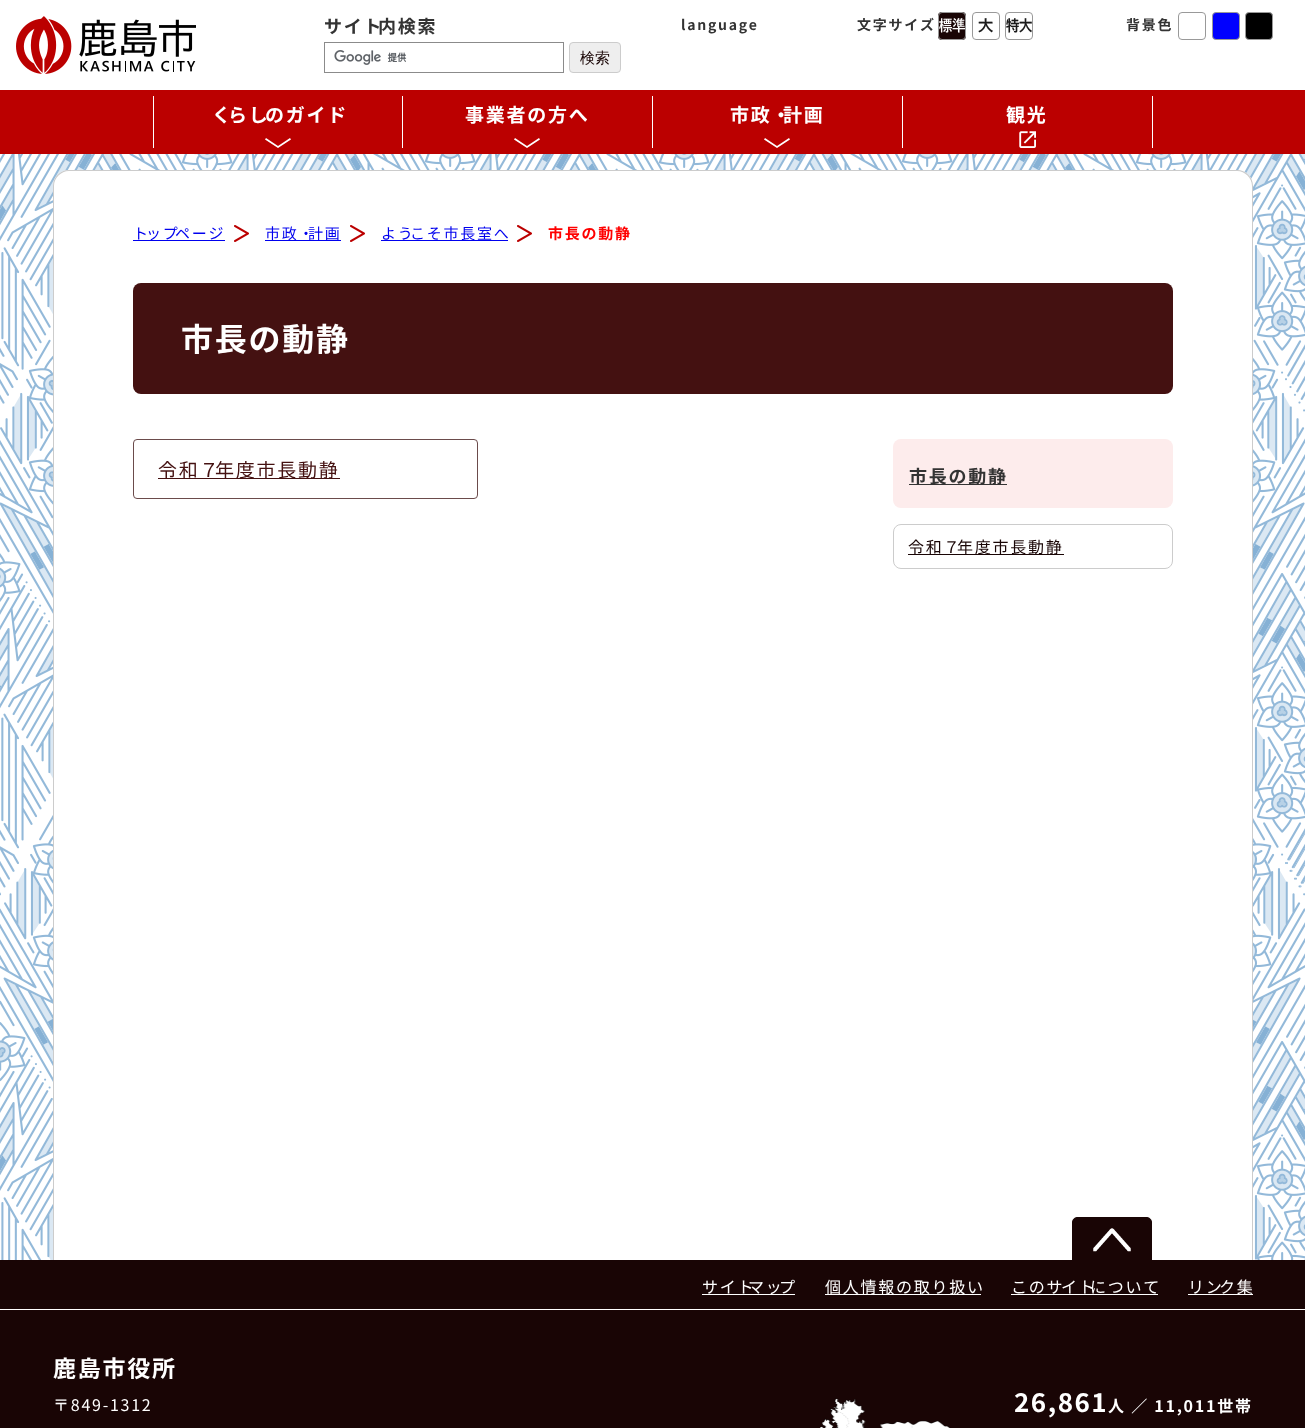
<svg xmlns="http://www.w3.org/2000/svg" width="1305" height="1428">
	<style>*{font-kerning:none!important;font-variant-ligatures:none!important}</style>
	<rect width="100%" height="100%" fill="#FFFFFF" />
	<image x="0" y="154" width="1305" height="1106" href="assets/img1.png" />
	<image x="16" y="16" width="180" height="58" href="assets/img2.png" />
	<text x="324" y="33" font-family="Noto Sans JP" font-size="18" font-weight="700" letter-spacing="1.75" fill="#333333">サイト</text>
	<text x="378" y="33" font-family="Noto Sans JP" font-size="18" font-weight="700" letter-spacing="1.75" fill="#333333">内検索</text>
	<image x="334" y="50" width="73" height="15" href="assets/img3.png" />
	<rect x="324.5" y="42.5" width="239" height="30" fill="none" stroke="#8B8B8B" />
	<rect x="569.5" y="42.5" width="51" height="30" rx="3.5" fill="#EEEEEE" stroke="#CCCCCC" />
	<text x="580" y="63" font-family="WenQuanYi Zen Hei" font-size="15" font-weight="500" fill="#190505">検索</text>
	<g font-family="Noto Sans JP" font-size="14" font-weight="700" letter-spacing="1.75" fill="#333333">
		<text x="681" y="30">language</text>
		<text x="857" y="30">文字サイズ</text>
	</g>
	<image x="938" y="12" width="28" height="28" href="assets/img4.png" />
	<rect x="938.5" y="12.5" width="27" height="27" rx="3.5" fill="none" stroke="#999999" />
	<image x="972" y="12" width="28" height="28" href="assets/img5.png" />
	<rect x="972.5" y="12.5" width="27" height="27" rx="3.5" fill="none" stroke="#999999" />
	<image x="1005" y="12" width="28" height="28" href="assets/img6.png" />
	<rect x="1005.5" y="12.5" width="27" height="27" rx="3.5" fill="none" stroke="#999999" />
	<text x="1126" y="30" font-family="Noto Sans JP" font-size="14" font-weight="700" letter-spacing="1.75" fill="#333333">背景色</text>
	<rect x="1178.5" y="12.5" width="27" height="27" rx="3.5" fill="none" stroke="#999999" />
	<rect x="1212.5" y="12.5" width="27" height="27" rx="3.5" fill="#0000FF" stroke="#999999" />
	<rect x="1245.5" y="12.5" width="27" height="27" rx="3.5" fill="#000000" stroke="#999999" />
	<rect x="0" y="90" width="1305" height="64" fill="#BB0000" />
	<path d="M291 139.5L278 148L265 139.5L266 138L278 146L290 138Z" fill="#FFFFFF" />
	<rect x="402" y="96" width="1" height="52" fill="#FFFFFF" />
	<rect x="153" y="96" width="1" height="52" fill="#FFFFFF" />
	<text x="212" y="122" font-family="Noto Sans JP" font-size="19" font-weight="700" letter-spacing="1.75" fill="#FFFFFF">く</text>
	<text x="228" y="122" font-family="Noto Sans JP" font-size="19" font-weight="700" letter-spacing="1.75" fill="#FFFFFF">らし</text>
	<text x="265" y="122" font-family="Noto Sans JP" font-size="19" font-weight="700" letter-spacing="1.75" fill="#FFFFFF">のガイド</text>
	<path d="M540 139.5L527 148L514 139.5L515 138L527 146L539 138Z" fill="#FFFFFF" />
	<rect x="652" y="96" width="1" height="52" fill="#FFFFFF" />
	<text x="465" y="122" font-family="Noto Sans JP" font-size="19" font-weight="700" letter-spacing="1.75" fill="#FFFFFF">事業者の方へ</text>
	<path d="M790 139.5L777 148L764 139.5L765 138L777 146L789 138Z" fill="#FFFFFF" />
	<rect x="902" y="96" width="1" height="52" fill="#FFFFFF" />
	<text x="730" y="122" font-family="Noto Sans JP" font-size="19" font-weight="700" letter-spacing="1.75" fill="#FFFFFF">市政・</text>
	<text x="783" y="122" font-family="Noto Sans JP" font-size="19" font-weight="700" letter-spacing="1.75" fill="#FFFFFF">計画</text>
	<image x="1019" y="131" width="17" height="17" href="assets/img7.png" />
	<rect x="1152" y="96" width="1" height="52" fill="#FFFFFF" />
	<text x="1006" y="122" font-family="Noto Sans JP" font-size="19" font-weight="700" letter-spacing="1.75" fill="#FFFFFF">観光</text>
	<path d="M69 170H1237C1246 170 1253 177 1253 186V1260H53V186C53 177 60 170 69 170Z" fill="#FFFFFF" />
	<path d="M69 170H1237C1246 170 1253 177 1253 186V1260H53V186C53 177 60 170 69 170ZM69 171H1237C1245 171 1252 178 1252 186V1260H54V186C54 178 61 171 69 171Z" fill="#CCCCCC" fill-rule="evenodd" />
	<image x="234" y="225" width="15" height="17" href="assets/img8.png" />
	<rect x="133" y="240" width="92" height="1" fill="#0000EE" />
	<text x="133" y="239" font-family="Noto Sans JP" font-size="15" letter-spacing="1.75" fill="#0000EE">ト</text>
	<text x="146" y="239" font-family="Noto Sans JP" font-size="15" letter-spacing="1.75" fill="#0000EE">ップ</text>
	<text x="175" y="239" font-family="Noto Sans JP" font-size="15" letter-spacing="1.75" fill="#0000EE">ページ</text>
	<image x="350" y="225" width="15" height="17" href="assets/img8.png" />
	<rect x="265" y="240" width="76" height="1" fill="#0000EE" />
	<text x="265" y="239" font-family="Noto Sans JP" font-size="15" letter-spacing="1.75" fill="#0000EE">市政・</text>
	<text x="308" y="239" font-family="Noto Sans JP" font-size="15" letter-spacing="1.75" fill="#0000EE">計画</text>
	<image x="517" y="225" width="15" height="17" href="assets/img8.png" />
	<rect x="381" y="240" width="127" height="1" fill="#0000EE" />
	<text x="381" y="239" font-family="Noto Sans JP" font-size="15" letter-spacing="1.75" fill="#0000EE">よう</text>
	<text x="410" y="239" font-family="Noto Sans JP" font-size="15" letter-spacing="1.75" fill="#0000EE">こそ市長室へ</text>
	<text x="548" y="239" font-family="Noto Sans JP" font-size="15" font-weight="700" letter-spacing="1.75" fill="#FF0000">市長の動静</text>
	<rect x="133" y="283" width="1040" height="111" rx="8" fill="#441111" />
	<text x="181" y="351" font-family="Noto Sans JP" font-size="32" font-weight="700" letter-spacing="1.75" fill="#FFFFFF">市長の動静</text>
	<rect x="133.5" y="439.5" width="344" height="59" rx="3.5" fill="none" stroke="#6B4B4B" />
	<rect x="158" y="478" width="182" height="1" fill="#441111" />
	<text x="158" y="477" font-family="Noto Sans JP" font-size="19" letter-spacing="1.75" fill="#441111">令和７</text>
	<text x="215" y="477" font-family="Noto Sans JP" font-size="19" letter-spacing="1.75" fill="#441111">年度市長動静</text>
	<rect x="893" y="439" width="280" height="69" rx="8" fill="#FDECEC" />
	<rect x="909" y="484" width="98" height="1" fill="#333333" />
	<text x="909" y="483" font-family="Noto Sans JP" font-size="18" font-weight="700" letter-spacing="1.75" fill="#333333">市長の動静</text>
	<rect x="893.5" y="524.5" width="279" height="44" rx="7.5" fill="none" stroke="#CCCCCC" />
	<rect x="908" y="554" width="156" height="1" fill="#190505" />
	<text x="908" y="553" font-family="Noto Sans JP" font-size="16" letter-spacing="1.75" fill="#190505">令和７</text>
	<text x="957" y="553" font-family="Noto Sans JP" font-size="16" letter-spacing="1.75" fill="#190505">年度市長動静</text>
	<image x="1072" y="1217" width="80" height="43" href="assets/img9.png" />
	<rect x="0" y="1260" width="1305" height="168" fill="#190505" />
	<rect x="0" y="1309" width="1305" height="1" fill="#FFFFFF" />
	<rect x="702" y="1294" width="93" height="1" fill="#FFFFFF" />
	<text x="702" y="1293" font-family="Noto Sans JP" font-size="16" letter-spacing="1.75" fill="#FFFFFF">サイト</text>
	<text x="748" y="1293" font-family="Noto Sans JP" font-size="16" letter-spacing="1.75" fill="#FFFFFF">マッ</text>
	<text x="779" y="1293" font-family="Noto Sans JP" font-size="16" letter-spacing="1.75" fill="#FFFFFF">プ</text>
	<rect x="825" y="1294" width="156" height="1" fill="#FFFFFF" />
	<g font-family="Noto Sans JP" font-size="16" letter-spacing="1.75" fill="#FFFFFF">
		<text x="825" y="1293">個人情報の取り扱い</text>
		<text x="1011" y="1293">このサ</text>
		<text x="1061" y="1293">イト</text>
		<text x="1090" y="1293">について</text>
	</g>
	<rect x="1011" y="1294" width="147" height="1" fill="#FFFFFF" />
	<rect x="1188" y="1294" width="65" height="1" fill="#FFFFFF" />
	<text x="1188" y="1293" font-family="Noto Sans JP" font-size="16" letter-spacing="1.75" fill="#FFFFFF">リン</text>
	<text x="1219" y="1293" font-family="Noto Sans JP" font-size="16" letter-spacing="1.75" fill="#FFFFFF">ク集</text>
	<text x="53" y="1377" font-family="Noto Sans JP" font-size="23" font-weight="700" letter-spacing="1.75" fill="#FFFFFF">鹿島市役所</text>
	<text x="53" y="1411" font-family="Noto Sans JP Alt" font-size="16" letter-spacing="1.75" fill="#FFFFFF">〒849-1312</text>
	<image x="820" y="1398" width="130" height="30" href="assets/img10.png" />
	<text x="1014" y="1412" font-family="Noto Sans JP" font-size="26" font-weight="700" letter-spacing="1.5" fill="#FFFFFF">26,861</text>
	<text x="1108" y="1412" font-family="Noto Sans JP" font-size="16" font-weight="700" letter-spacing="1.75" fill="#FFFFFF">人 ／ 11,011世帯</text>
</svg>
